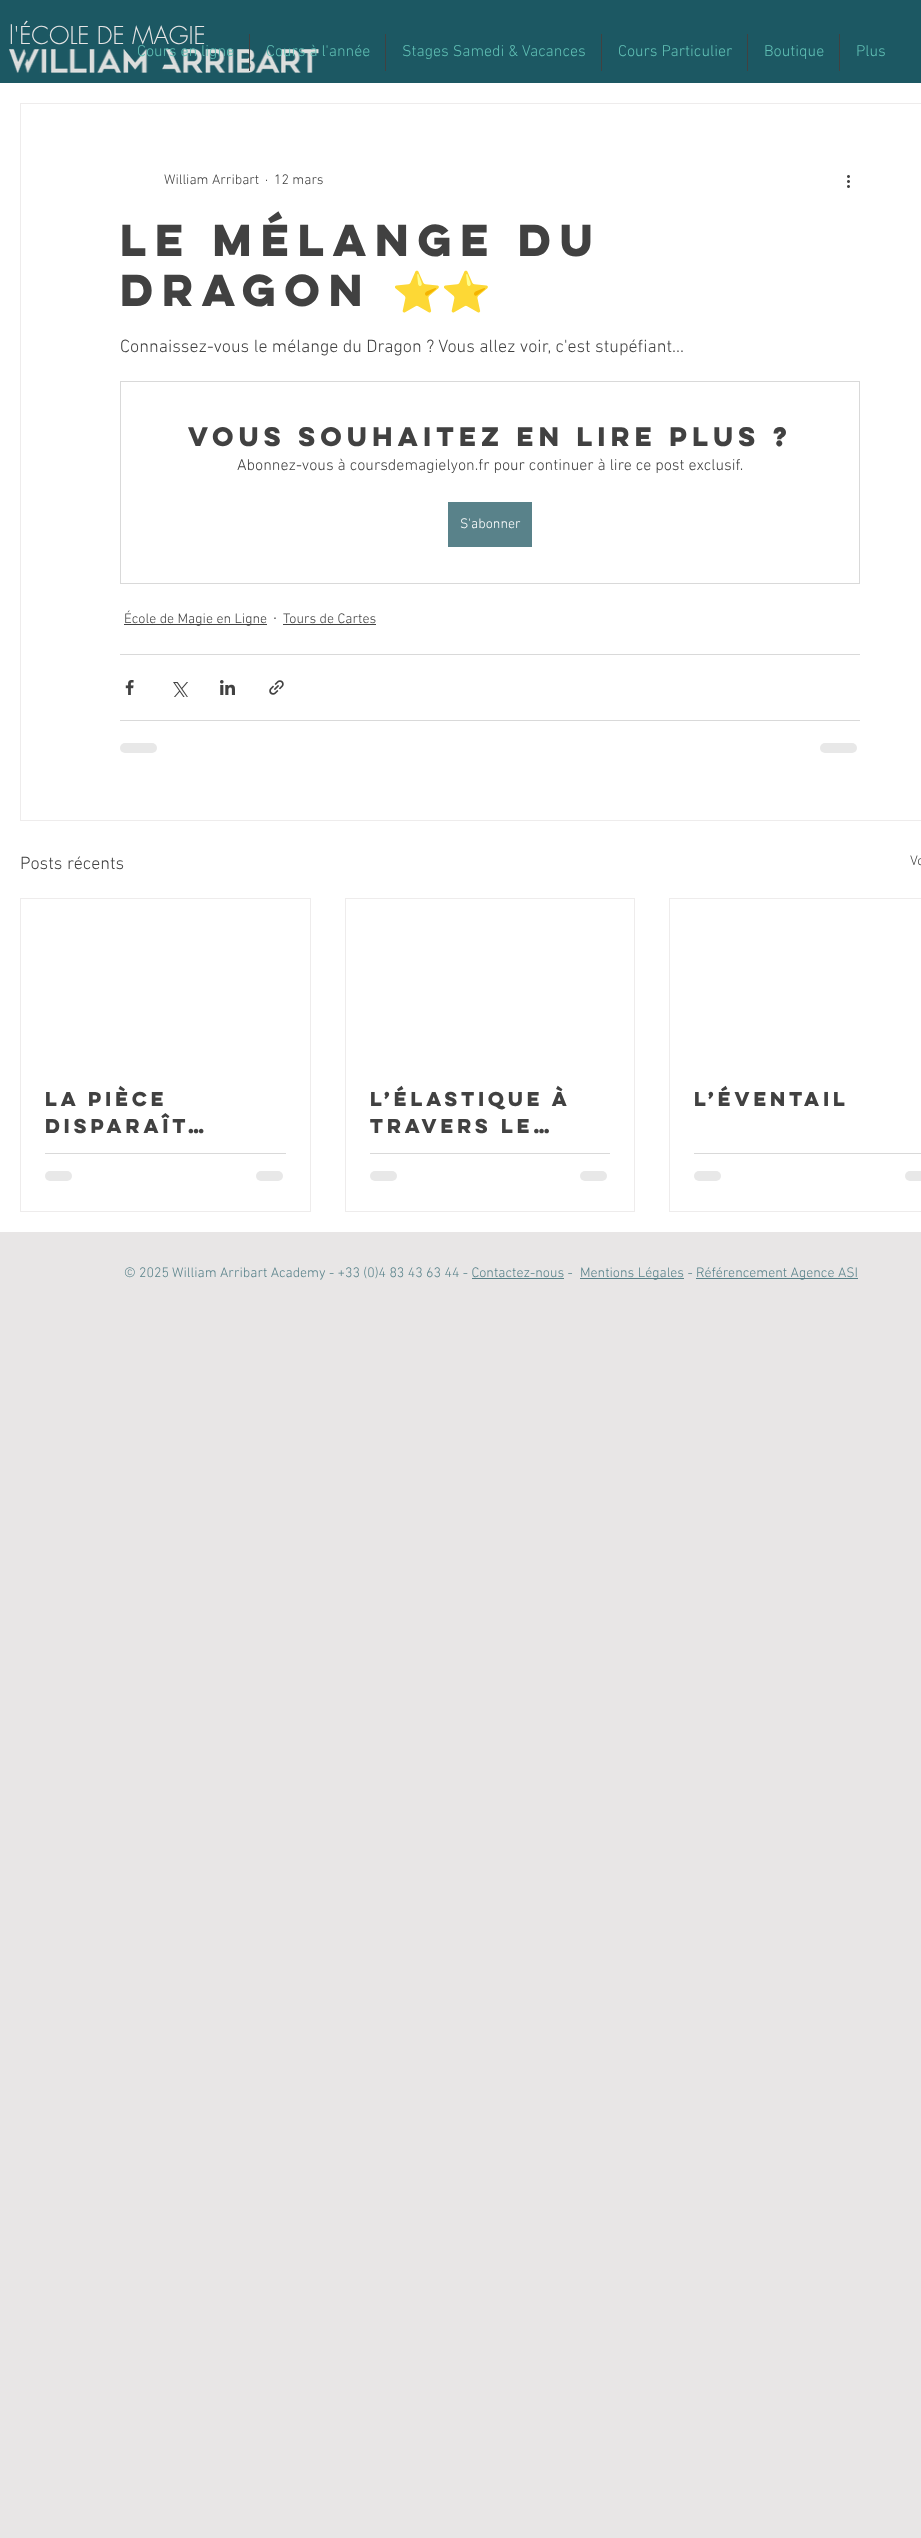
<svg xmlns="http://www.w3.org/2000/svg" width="921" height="2538">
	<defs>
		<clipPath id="clip1"><rect x="370" y="1085" width="240" height="54" /></clipPath>
	</defs>
	<rect width="100%" height="100%" fill="#E8E6E6" />
	<rect x="0" y="0" width="921" height="83" fill="#1C5863" />
	<text x="9" y="44" font-family="futura" font-size="24" font-weight="300" fill="#E8E6E6">l'ÉCOLE DE MAGIE</text>
	<image x="9" y="49" width="310" height="24" href="assets/img1.png" />
	<text x="137" y="56" font-family="'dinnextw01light'" font-size="16" font-weight="300" fill="#60BFB4">Cours en ligne</text>
	<rect x="249" y="34" width="1" height="37" fill="#414141" />
	<text x="266" y="56" font-family="'dinnextw01light'" font-size="16" font-weight="300" fill="#60BFB4">Cours à l'année</text>
	<rect x="385" y="34" width="1" height="37" fill="#414141" />
	<text x="402" y="56" font-family="'dinnextw01light'" font-size="16" font-weight="300" fill="#60BFB4">Stages Samedi &amp; Vacances</text>
	<rect x="601" y="34" width="1" height="37" fill="#414141" />
	<text x="618" y="56" font-family="'dinnextw01light'" font-size="16" font-weight="300" fill="#60BFB4">Cours Particulier</text>
	<rect x="747" y="34" width="1" height="37" fill="#414141" />
	<text x="764" y="56" font-family="'dinnextw01light'" font-size="16" font-weight="300" fill="#60BFB4">Boutique</text>
	<rect x="839" y="34" width="1" height="37" fill="#414141" />
	<text x="856" y="56" font-family="'dinnextw01light'" font-size="16" font-weight="300" fill="#60BFB4">Plus</text>
	<rect x="0" y="83" width="921" height="1149" fill="#FFFFFF" />
	<rect x="20.5" y="103.5" width="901" height="717" fill="none" stroke="#EEECEC" />
	<g font-family="'dinnextw01light'" font-size="14" font-weight="300" fill="#414141">
		<text x="164" y="184">William Arribart</text>
		<text x="265" y="184">·</text>
		<text x="274" y="184">12 mars</text>
	</g>
	<image x="847" y="175" width="3" height="13" href="assets/img2.png" />
	<g font-family="'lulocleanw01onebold'" font-size="40" font-weight="700" fill="#414141">
		<text x="120" y="256">Le mélange du</text>
		<text x="120" y="306">dragon</text>
	</g>
	<text x="392" y="306" font-family="Noto Color Emoji" font-size="40" fill="#414141">⭐️⭐️</text>
	<text x="120" y="352" font-family="'dinnextw01light'" font-size="18" font-weight="300" fill="#414141">Connaissez-vous le mélange du Dragon ? Vous allez voir, c'est stupéfiant...</text>
	<rect x="120.5" y="381.5" width="739" height="202" fill="none" stroke="#D9D9D9" />
	<text x="188" y="446" font-family="'lulocleanw01onebold'" font-size="24" font-weight="700" fill="#414141">Vous souhaitez en lire plus ?</text>
	<text x="237" y="470" font-family="'dinnextw01light'" font-size="16" font-weight="300" fill="#414141">Abonnez-vous à coursdemagielyon.fr pour continuer à lire ce post exclusif.</text>
	<rect x="448" y="502" width="84" height="45" fill="#59828A" />
	<text x="460" y="528" font-family="'dinnextw01light'" font-size="14" font-weight="300" fill="#FFFFFF">S'abonner</text>
	<rect x="124" y="624" width="143" height="1" fill="#414141" />
	<text x="124" y="623" font-family="'dinnextw01light'" font-size="14" font-weight="300" fill="#414141">École de Magie en Ligne</text>
	<text x="273" y="623" font-family="'dinnextw01light'" font-size="18" font-weight="300" fill="#414141">·</text>
	<text x="283" y="623" font-family="'dinnextw01light'" font-size="14" font-weight="300" fill="#414141">Tours de Cartes</text>
	<rect x="283" y="624" width="93" height="1" fill="#414141" />
	<rect x="120" y="654" width="740" height="1" fill="#D9D9D9" />
	<image x="125" y="680" width="9" height="15" href="assets/img3.png" />
	<image x="173" y="682" width="15" height="15" href="assets/img4.png" />
	<image x="220" y="680" width="15" height="15" href="assets/img5.png" />
	<image x="269" y="680" width="15" height="15" href="assets/img6.png" />
	<rect x="120" y="720" width="740" height="1" fill="#D9D9D9" />
	<rect x="120" y="743" width="37" height="10" rx="5" fill="#E8E8E8" />
	<rect x="820" y="743" width="37" height="10" rx="5" fill="#E8E8E8" />
	<text x="20" y="869" font-family="'dinnextw01light'" font-size="18" font-weight="300" fill="#414141">Posts récents</text>
	<text x="910" y="865" font-family="'dinnextw01light'" font-size="14" font-weight="300" fill="#414141">Vo</text>
	<rect x="20.5" y="898.5" width="290" height="313" fill="none" stroke="#EEECEC" />
	<g font-family="'lulocleanw01onebold'" font-size="18" font-weight="700" fill="#414141">
		<text x="45" y="1106">La pièce</text>
		<text x="45" y="1133">disparaît…</text>
	</g>
	<rect x="45" y="1153" width="241" height="1" fill="#D9D9D9" />
	<rect x="45" y="1171" width="27" height="10" rx="5" fill="#E8E8E8" />
	<rect x="256" y="1171" width="27" height="10" rx="5" fill="#E8E8E8" />
	<rect x="345.5" y="898.5" width="289" height="313" fill="none" stroke="#EEECEC" />
	<text x="370" y="1106" font-family="'lulocleanw01onebold'" font-size="18" font-weight="700" fill="#414141">L’élastique à</text>
	<g clip-path="url(#clip1)">
		<text x="370" y="1133" font-family="'lulocleanw01onebold'" font-size="18" font-weight="700" fill="#414141">travers le…</text>
	</g>
	<rect x="370" y="1153" width="240" height="1" fill="#D9D9D9" />
	<rect x="370" y="1171" width="27" height="10" rx="5" fill="#E8E8E8" />
	<rect x="580" y="1171" width="27" height="10" rx="5" fill="#E8E8E8" />
	<rect x="669.5" y="898.5" width="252" height="313" fill="none" stroke="#EEECEC" />
	<text x="694" y="1106" font-family="'lulocleanw01onebold'" font-size="18" font-weight="700" fill="#414141">L’éventail</text>
	<rect x="694" y="1153" width="227" height="1" fill="#D9D9D9" />
	<rect x="694" y="1171" width="27" height="10" rx="5" fill="#E8E8E8" />
	<rect x="905" y="1171" width="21" height="10" rx="5" fill="#E8E8E8" />
	<text x="124" y="1277" font-family="'dinnextw01light'" font-size="14" font-weight="300" fill="#59828A">© 2025 William Arribart Academy - +33 (0)4 83 43 63 44 - Contactez-nous -</text>
	<rect x="472" y="1278" width="92" height="1" fill="#59828A" />
	<rect x="580" y="1278" width="104" height="1" fill="#59828A" />
	<text x="580" y="1277" font-family="'dinnextw01light'" font-size="14" font-weight="300" fill="#59828A">Mentions Légales -</text>
	<rect x="696" y="1278" width="162" height="1" fill="#59828A" />
	<text x="696" y="1277" font-family="'dinnextw01light'" font-size="14" font-weight="300" fill="#59828A">Référencement Agence ASI</text>
</svg>
